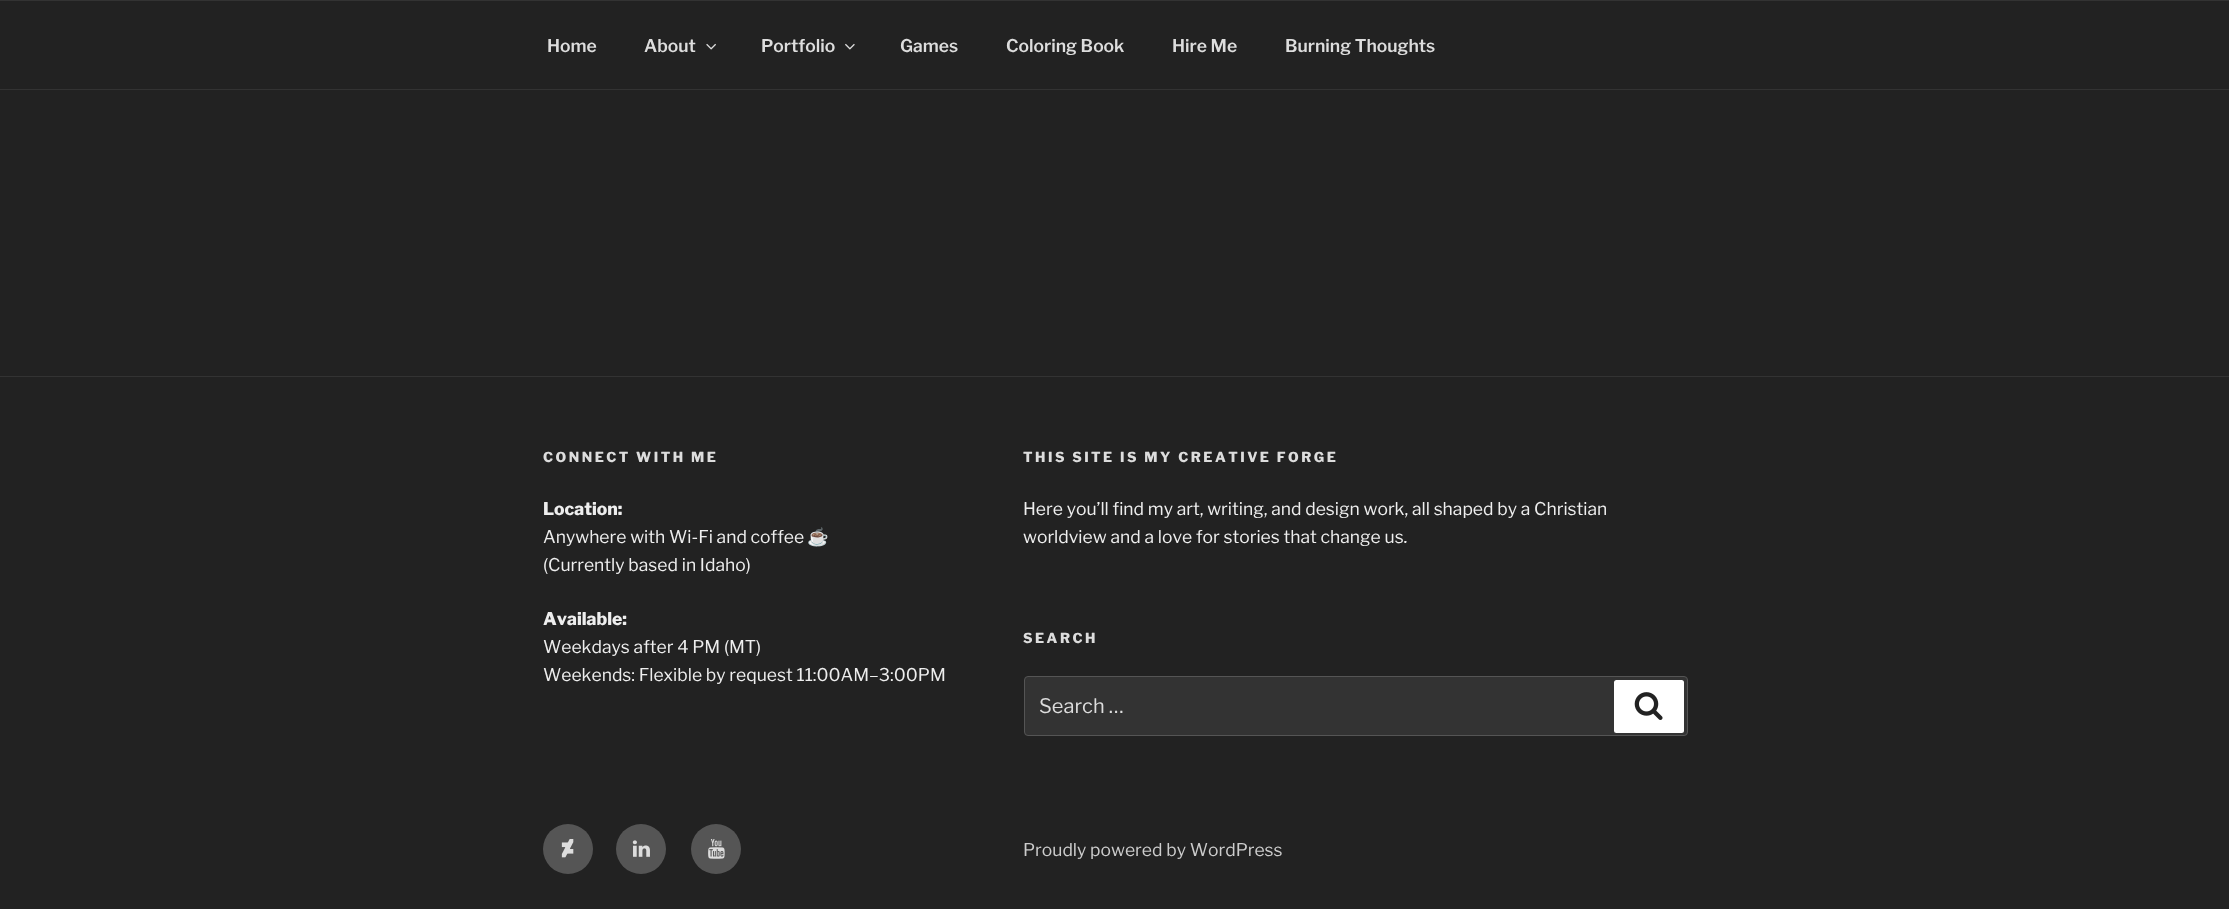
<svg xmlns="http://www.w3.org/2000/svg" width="2229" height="909">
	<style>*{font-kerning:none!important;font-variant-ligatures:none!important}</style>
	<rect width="100%" height="100%" fill="#222222" />
	<rect x="0" y="0" width="2229" height="1" fill="#333333" />
	<rect x="0" y="89" width="2229" height="1" fill="#333333" />
	<g font-family="'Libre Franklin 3'" font-size="17.5" font-weight="100" fill="#DDDDDD">
		<text x="547" y="52">Home</text>
		<text x="644" y="52">About</text>
	</g>
	<image x="706" y="43" width="10" height="7" href="assets/img1.png" />
	<text x="761" y="52" font-family="'Libre Franklin 3'" font-size="17.5" font-weight="100" fill="#DDDDDD">Portfolio</text>
	<image x="845" y="43" width="10" height="7" href="assets/img2.png" />
	<g font-family="'Libre Franklin 3'" font-size="17.5" font-weight="100" fill="#DDDDDD">
		<text x="900" y="52">Games</text>
		<text x="1006" y="52">Coloring Book</text>
		<text x="1172" y="52">Hire Me</text>
		<text x="1285" y="52">Burning Thoughts</text>
	</g>
	<rect x="0" y="376" width="2229" height="1" fill="#333333" />
	<text x="543" y="462" font-family="Libre Franklin" font-size="13.75" font-weight="100" letter-spacing="2.5" fill="#DDDDDD">CONNECT WITH ME</text>
	<text x="543" y="515" font-family="Libre Franklin" font-size="17.5" font-weight="100" fill="#EEEEEE">Location:</text>
	<text x="543" y="543" font-family="'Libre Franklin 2'" font-size="17.5" font-weight="100" fill="#EEEEEE">Anywhere with Wi-Fi and coffee</text>
	<text x="807" y="543" font-family="Noto Color Emoji" font-size="17.5" fill="#EEEEEE">☕</text>
	<text x="543" y="571" font-family="'Libre Franklin 2'" font-size="17.5" font-weight="100" fill="#EEEEEE">(Currently based in Idaho)</text>
	<text x="543" y="625" font-family="Libre Franklin" font-size="17.5" font-weight="100" fill="#EEEEEE">Available:</text>
	<g font-family="'Libre Franklin 2'" font-size="17.5" font-weight="100" fill="#EEEEEE">
		<text x="543" y="653">Weekdays after 4 PM (MT)</text>
		<text x="543" y="681">Weekends: Flexible by request 11:00AM–3:00PM</text>
	</g>
	<text x="1023" y="462" font-family="Libre Franklin" font-size="13.75" font-weight="100" letter-spacing="2.5" fill="#DDDDDD">THIS SITE IS MY CREATIVE FORGE</text>
	<g font-family="'Libre Franklin 2'" font-size="17.5" font-weight="100" fill="#EEEEEE">
		<text x="1023" y="515">Here you’ll find my art, writing, and design work, all shaped by a Christian</text>
		<text x="1023" y="543">worldview and a love for stories that change us.</text>
	</g>
	<text x="1023" y="643" font-family="Libre Franklin" font-size="13.75" font-weight="100" letter-spacing="2.5" fill="#DDDDDD">SEARCH</text>
	<rect x="1024.5" y="676.5" width="663" height="59" rx="3.5" fill="#333333" stroke="#555555" />
	<text x="1039" y="713" font-family="'Libre Franklin 2'" font-size="20" font-weight="100" fill="#DDDDDD">Search …</text>
	<rect x="1614" y="680" width="70" height="53" rx="2.5" fill="#FFFFFF" />
	<image x="1634" y="692" width="29" height="28" href="assets/img3.png" />
	<circle cx="568" cy="849" r="25" fill="#555555" />
	<image x="561" y="839" width="13" height="19" href="assets/img4.png" />
	<circle cx="641" cy="849" r="25" fill="#555555" />
	<image x="632" y="840" width="18" height="17" href="assets/img5.png" />
	<circle cx="716" cy="849" r="25" fill="#555555" />
	<image x="708" y="839" width="17" height="20" href="assets/img6.png" />
	<text x="1023" y="856" font-family="'Libre Franklin 2'" font-size="17.5" font-weight="100" fill="#CCCCCC">Proudly powered by WordPress</text>
</svg>
